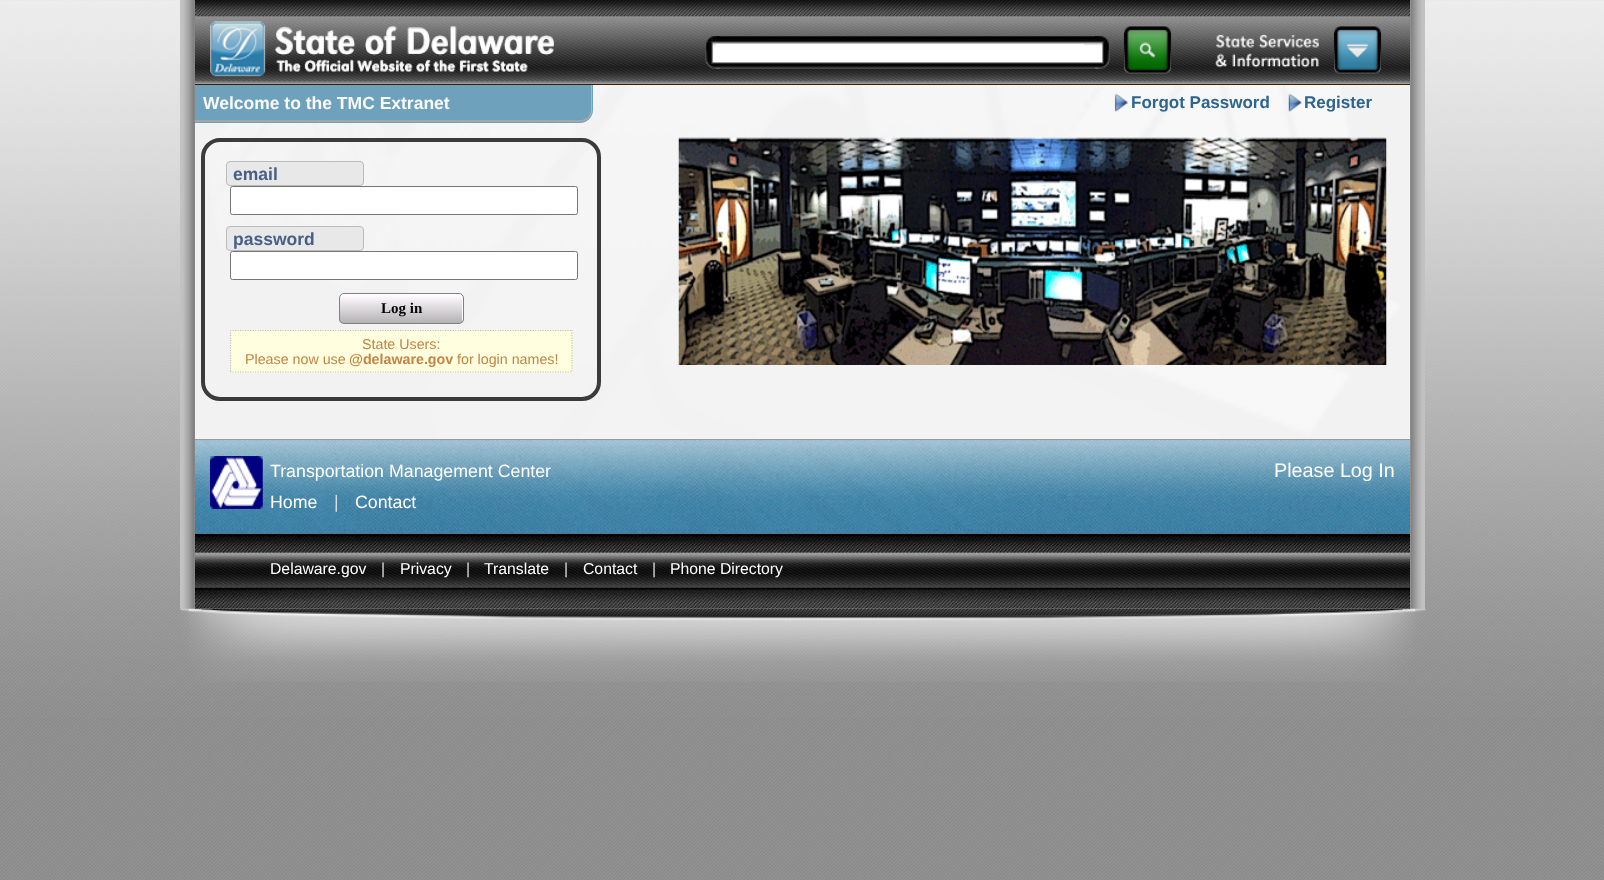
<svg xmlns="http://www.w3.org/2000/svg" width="1604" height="880">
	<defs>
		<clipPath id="clip1"><rect x="339" y="293" width="125" height="31" rx="5" /></clipPath>
		<linearGradient id="g1" gradientUnits="userSpaceOnUse" x1="340" y1="294" x2="340" y2="323"><stop offset="0.05" stop-color="#FFFAFF" /><stop offset="1" stop-color="#B3B3B3" /></linearGradient>
	</defs>
	<rect width="100%" height="100%" fill="#FFFFFF" />
	<image x="0" y="0" width="1604" height="880" href="assets/img1.png" />
	<image x="180" y="0" width="1245" height="609" href="assets/img2.png" />
	<image x="195" y="0" width="1215" height="84" href="assets/img3.png" />
	<image x="210" y="21" width="344" height="56" href="assets/img4.png" />
	<image x="210" y="21" width="344" height="56" href="assets/img5.png" />
	<image x="705" y="36" width="15" height="33" href="assets/img6.png" />
	<image x="716" y="36" width="383" height="33" href="assets/img7.png" />
	<rect x="716" y="44" width="368" height="2" fill="#FFFFFF" />
	<image x="1095" y="36" width="15" height="33" href="assets/img8.png" />
	<image x="1123" y="26" width="49" height="48" href="assets/img9.png" />
	<image x="1215" y="34" width="104" height="34" href="assets/img10.png" />
	<image x="1333" y="26" width="49" height="48" href="assets/img11.png" />
	<rect x="195" y="84" width="1215" height="1" fill="#391B02" />
	<rect x="195" y="439" width="1215" height="1" fill="#989898" />
	<image x="195" y="85" width="1215" height="354" href="assets/img12.png" />
	<image x="1114" y="93" width="14" height="19" href="assets/img13.png" />
	<text x="1131" y="108" font-family="Liberation Sans" font-size="17" font-weight="700" fill="#2E658F">Forgot Password</text>
	<image x="1288" y="93" width="14" height="19" href="assets/img14.png" />
	<text x="1304" y="108" font-family="Liberation Sans" font-size="17" font-weight="700" fill="#2E658F">Register</text>
	<rect x="203" y="140" width="396" height="259" rx="17" fill="none" stroke="#3B3B3B" stroke-width="4" />
	<rect x="226.5" y="161.5" width="137" height="24" rx="3.5" fill="#E8E8E8" stroke="#BBBBBB" />
	<text x="233" y="180" font-family="Liberation Sans" font-size="17.5" font-weight="700" fill="#455F86">email</text>
	<rect x="230.5" y="186.5" width="347" height="28" rx="2" fill="#FFFFFF" stroke="#767676" />
	<rect x="226.5" y="226.5" width="137" height="24" rx="3.5" fill="#E8E8E8" stroke="#BBBBBB" />
	<text x="233" y="245" font-family="Liberation Sans" font-size="17.5" font-weight="700" fill="#455F86">password</text>
	<rect x="230.5" y="251.5" width="347" height="28" rx="2" fill="#FFFFFF" stroke="#767676" />
	<g clip-path="url(#clip1)">
		<rect x="339" y="294" width="125" height="29" fill="url(#g1)" />
	</g>
	<path d="M344 295H459C463 295 462 304 462 306V322C464 320 463 312 463 308C463 289 464 294 440 294H363C360 294 340 289 340 299C340 297 342 295 344 295Z" fill="#FFFFFF" />
	<rect x="339.5" y="293.5" width="124" height="30" rx="4.5" fill="none" stroke="#808080" />
	<text x="381" y="313" font-family="Liberation Serif" font-size="15" font-weight="700" fill="#050505">Log in</text>
	<rect x="230" y="330" width="343" height="43" fill="#FFFFE0" />
	<path d="M230 330.5H572.5" fill="none" stroke="#C0C0C0" stroke-width="1.2" stroke-dasharray="1.25 1.25" />
	<path d="M572 330V372.5" fill="none" stroke="#C0C0C0" stroke-width="1.2" stroke-dasharray="1.25 1.25" />
	<path d="M230 372H572.5" fill="none" stroke="#C0C0C0" stroke-width="1.2" stroke-dasharray="1.25 1.25" />
	<path d="M230.5 330V372.5" fill="none" stroke="#C0C0C0" stroke-width="1.2" stroke-dasharray="1.25 1.25" />
	<g font-family="Liberation Sans" font-size="14.25" fill="#C48243">
		<text x="362" y="349">State Users:</text>
		<text x="245" y="364">Please now use</text>
	</g>
	<text x="349" y="364" font-family="Liberation Sans" font-size="14.25" font-weight="700" fill="#C48243">@delaware.gov</text>
	<text x="457" y="364" font-family="Liberation Sans" font-size="14.25" fill="#C48243">for login names!</text>
	<image x="678" y="137" width="709" height="228" href="assets/img15.png" />
	<path d="M195 85H593V110C593 117 587 123 580 123H195Z" fill="#6EA1BC" />
	<path d="M592 85H591V110C591 112 590.5 114 589 116L590 117C591 115 592 113 592 110Z" fill="#B5B5B5" />
	<path d="M195 120V122H580C584 122 588 120 590 117L589 116C587 118 584 120 580 120Z" fill="#A6A6A6" />
	<text x="203" y="109" font-family="Liberation Sans" font-size="17.5" font-weight="700" fill="#F9F9F9">Welcome to the TMC Extranet</text>
	<image x="195" y="440" width="1215" height="94" href="assets/img16.png" />
	<image x="210" y="456" width="53" height="53" href="assets/img17.png" />
	<image x="210" y="456" width="53" height="53" href="assets/img18.png" />
	<text x="270" y="477" font-family="Liberation Sans" font-size="17.8" fill="#FFFFFF">Transportation Management Center</text>
	<text x="1274" y="477" font-family="Liberation Sans" font-size="19.75" fill="#FFFFFF">Please Log In</text>
	<text x="270" y="508" font-family="Liberation Sans" font-size="17.8" fill="#FFFFFF">Home</text>
	<text x="334" y="508" font-family="Liberation Sans" font-size="17.8" fill="#DDDDDD">|</text>
	<text x="355" y="508" font-family="Liberation Sans" font-size="17.8" fill="#FFFFFF">Contact</text>
	<image x="180" y="608" width="1247" height="74" href="assets/img20.png" />
	<image x="195" y="533" width="1215" height="76" href="assets/img19.png" />
	<text x="270" y="574" font-family="Liberation Sans" font-size="15.75" fill="#FFFFFF">Delaware.gov</text>
	<text x="381" y="574" font-family="Liberation Sans" font-size="15.75" fill="#DDDDDD">|</text>
	<text x="400" y="574" font-family="Liberation Sans" font-size="15.75" fill="#FFFFFF">Privacy</text>
	<text x="466" y="574" font-family="Liberation Sans" font-size="15.75" fill="#DDDDDD">|</text>
	<text x="484" y="574" font-family="Liberation Sans" font-size="15.75" fill="#FFFFFF">Translate</text>
	<text x="564" y="574" font-family="Liberation Sans" font-size="15.75" fill="#DDDDDD">|</text>
	<text x="583" y="574" font-family="Liberation Sans" font-size="15.75" fill="#FFFFFF">Contact</text>
	<text x="652" y="574" font-family="Liberation Sans" font-size="15.75" fill="#DDDDDD">|</text>
	<text x="670" y="574" font-family="Liberation Sans" font-size="15.75" fill="#FFFFFF">Phone Directory</text>
</svg>
